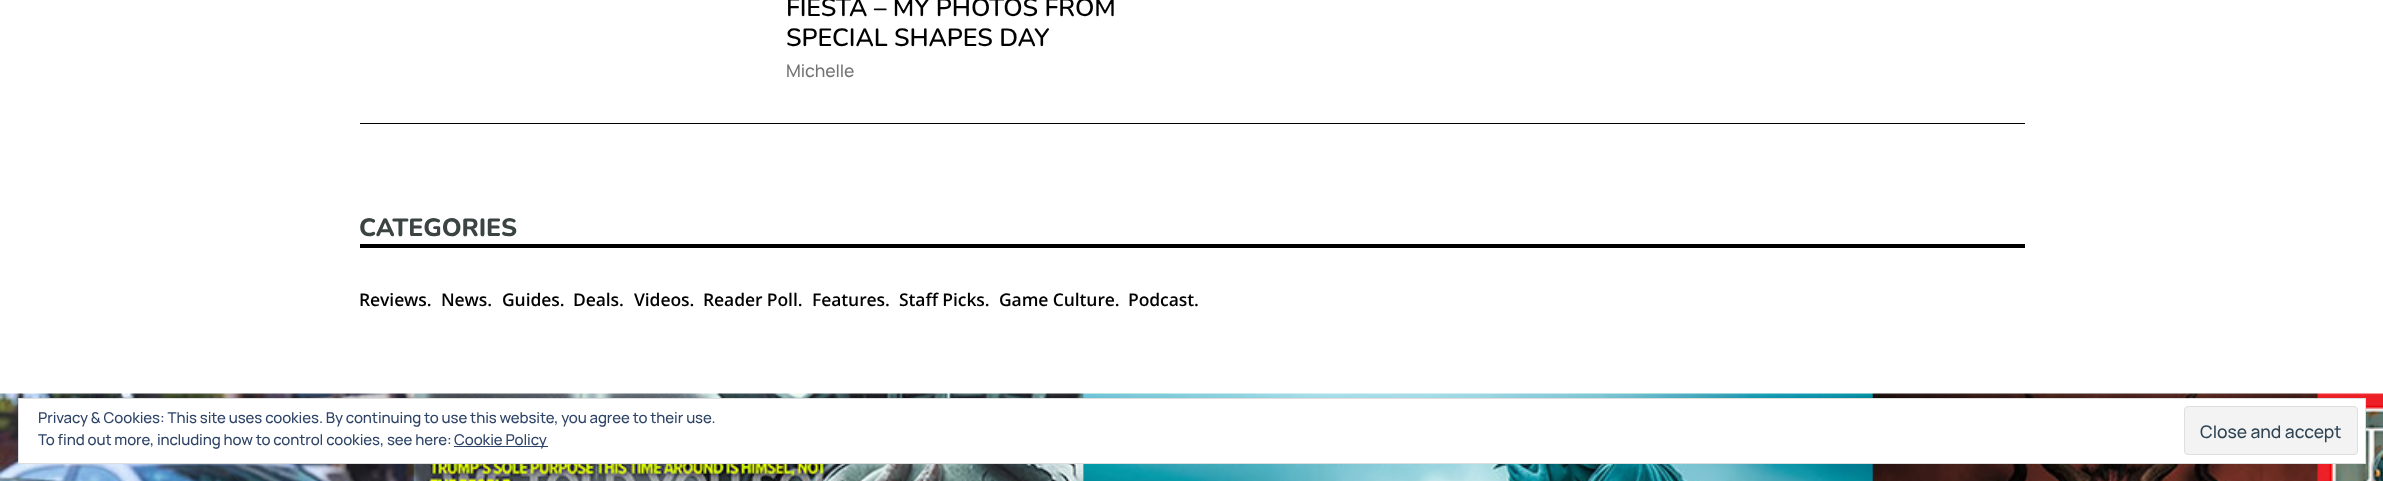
<svg xmlns="http://www.w3.org/2000/svg" width="2383" height="481">
	<rect width="100%" height="100%" fill="#FFFFFF" />
	<g font-family="Nunito" font-size="25" font-weight="600" letter-spacing="-0.09" fill="#000000">
		<text x="786" y="16">FIESTA – MY PHOTOS FROM</text>
		<text x="786" y="46">SPECIAL SHAPES DAY</text>
	</g>
	<text x="786" y="77" font-family="Manrope" font-size="17.5" font-weight="500" letter-spacing="-0.09" fill="#757575">Michelle</text>
	<rect x="360" y="123" width="1665" height="1" fill="#000000" />
	<rect x="360" y="244" width="1665" height="4" fill="#000000" />
	<text x="359" y="236" font-family="Nunito" font-size="25" font-weight="800" letter-spacing="-0.09" fill="#3B4443">CATEGORIES</text>
	<g font-family="Open Sans" font-size="17.5" font-weight="600" letter-spacing="-0.09" fill="#000000">
		<text x="359" y="306">Reviews.</text>
		<text x="441" y="306">News.</text>
		<text x="502" y="306">Guides.</text>
		<text x="573" y="306">Deals.</text>
		<text x="634" y="306">Videos.</text>
		<text x="703" y="306">Reader Poll.</text>
		<text x="812" y="306">Features.</text>
		<text x="899" y="306">Staff Picks.</text>
		<text x="999" y="306">Game Culture.</text>
		<text x="1128" y="306">Podcast.</text>
	</g>
	<image x="0" y="393" width="2383" height="88" href="assets/img1.png" />
	<rect x="18.5" y="398.5" width="2347" height="65" fill="#FFFFFF" stroke="#DEDEDE" />
	<g font-family="Manrope" font-size="15" font-weight="500" letter-spacing="-0.09" fill="#2E4467">
		<text x="38" y="423">Privacy &amp; Cookies: This site uses cookies. By continuing to use this website, you agree to their use.</text>
		<text x="38" y="445">To find out more, including how to control cookies, see here:</text>
	</g>
	<rect x="454" y="446" width="94" height="1" fill="#2E4467" />
	<text x="454" y="445" font-family="Manrope" font-size="15" font-weight="500" letter-spacing="-0.09" fill="#2E4467">Cookie Policy</text>
	<rect x="2184.5" y="406.5" width="173" height="48" rx="3.5" fill="#F3F3F3" stroke="#DEDEDE" />
	<text x="2200" y="438" font-family="Manrope" font-size="17.5" font-weight="500" fill="#2E4453">Close and accept</text>
</svg>
